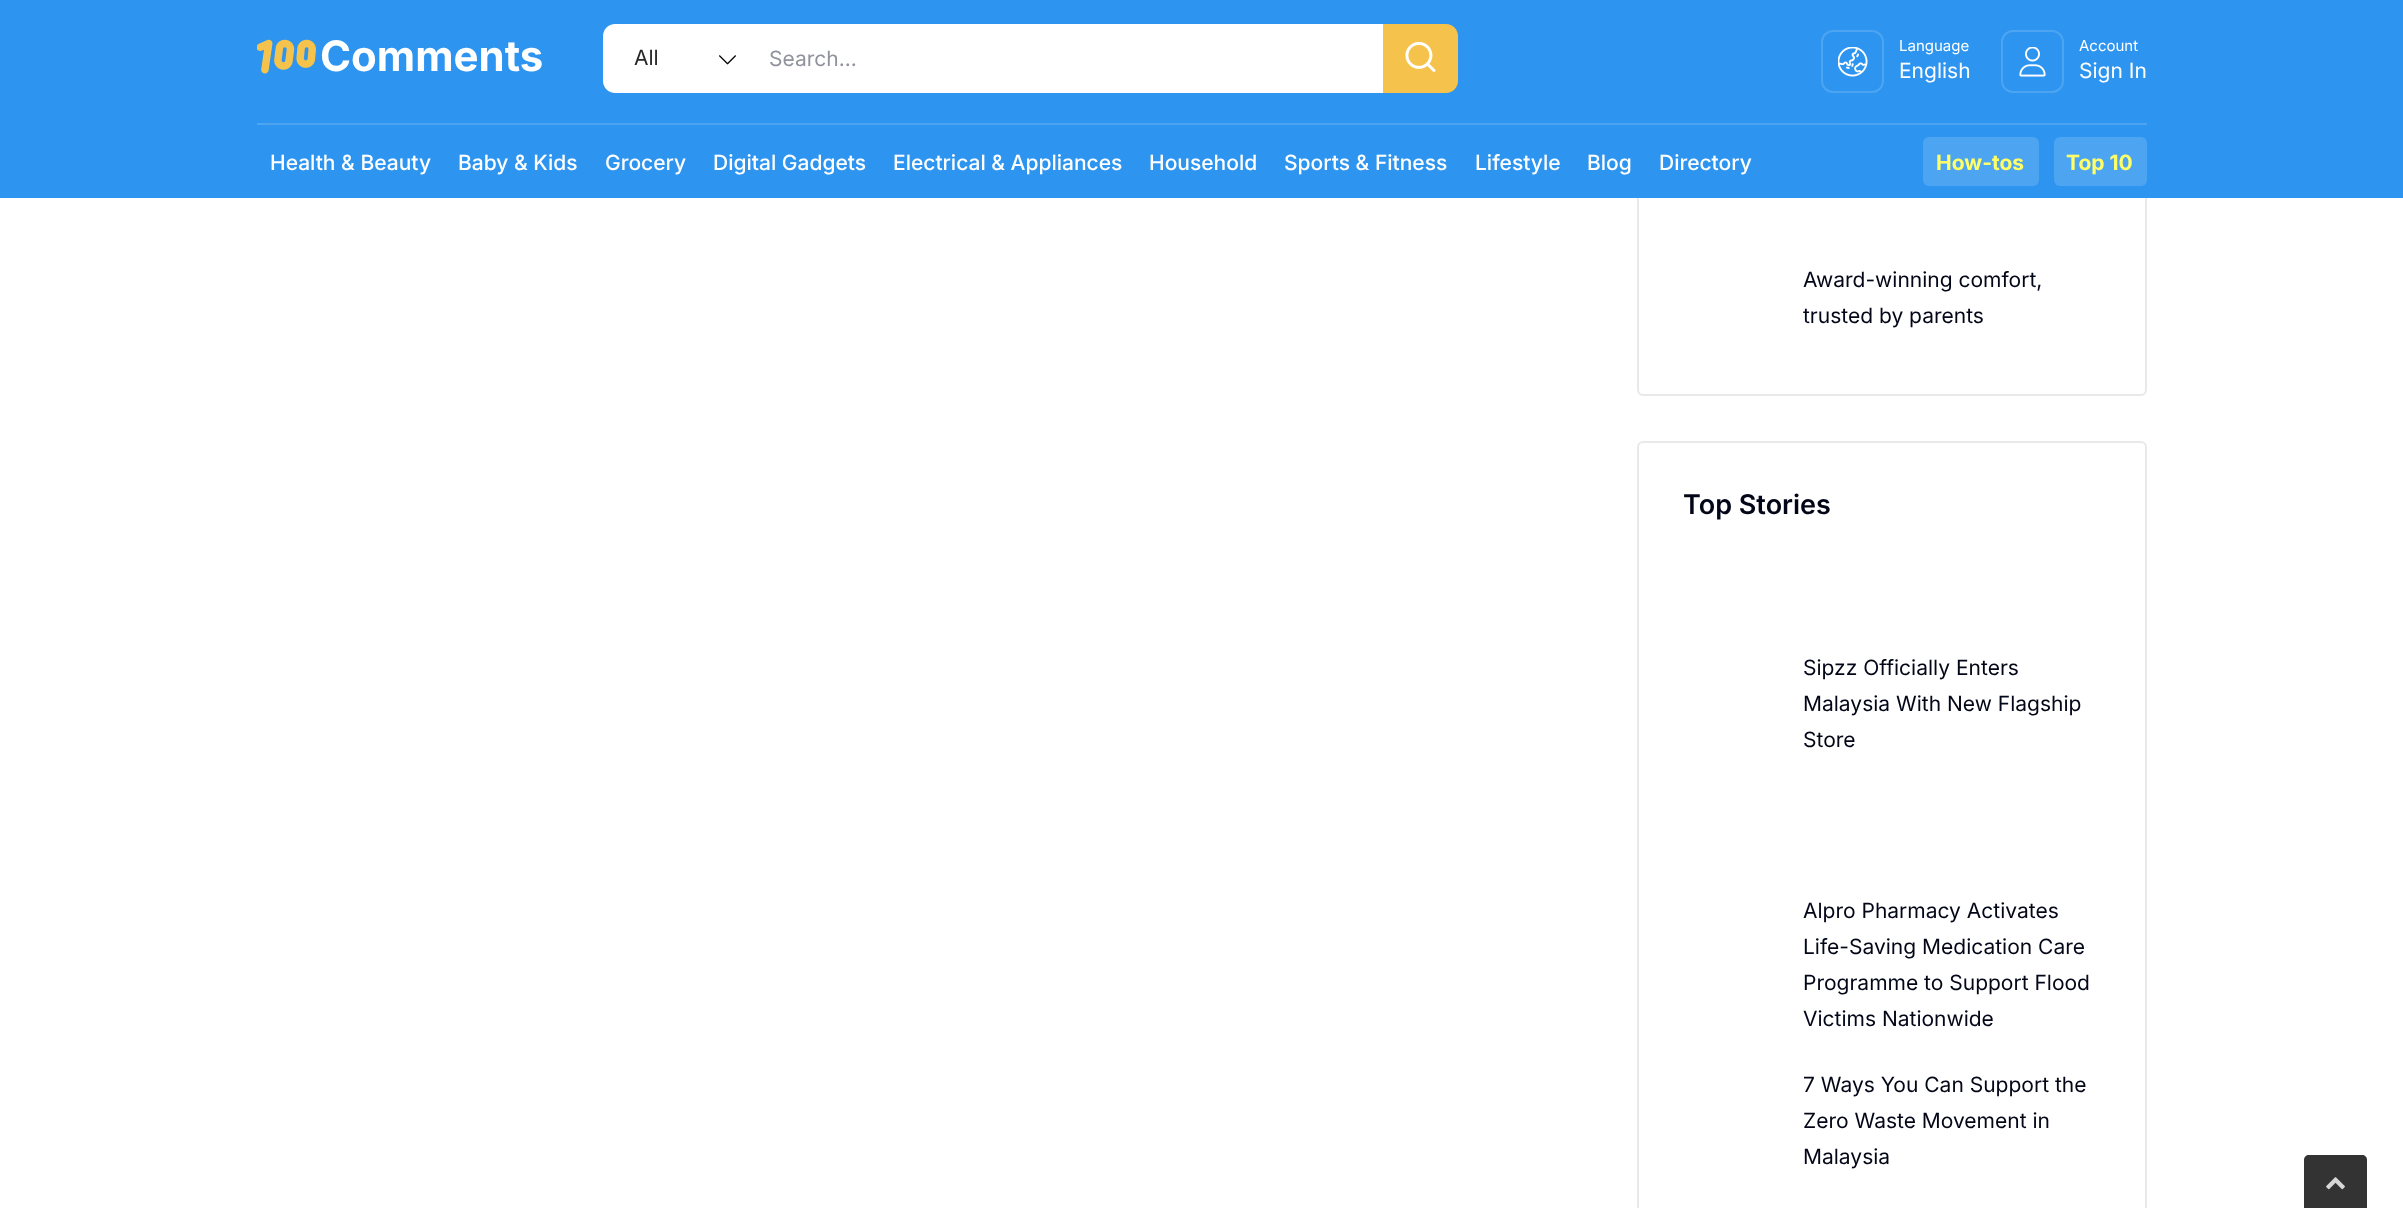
<svg xmlns="http://www.w3.org/2000/svg" width="2403" height="1208">
	<rect width="100%" height="100%" fill="#FFFFFF" />
	<rect x="1638" y="-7" width="508" height="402" rx="5" fill="none" stroke="#E9E9E9" stroke-width="2" />
	<rect x="0" y="0" width="2403" height="198" fill="#2D95F0" />
	<image x="257" y="39" width="59" height="35" href="assets/img1.png" />
	<text x="320" y="71" font-family="Inter" font-size="42" font-weight="700" fill="#FFFFFF">Comments</text>
	<path d="M615 24H753V93H615C608.5 93 603 87.5 603 81V36C603 29.5 608.5 24 615 24Z" fill="#FFFFFF" />
	<image x="719" y="55" width="17" height="10" href="assets/img2.png" />
	<text x="634" y="65" font-family="Inter" font-size="21" fill="#282828">All</text>
	<rect x="753" y="24" width="630" height="69" fill="#FFFFFF" />
	<text x="769" y="66" font-family="Inter" font-size="21" fill="#90939C">Search...</text>
	<path d="M1383 24H1446C1452.5 24 1458 29.5 1458 36V81C1458 87.5 1452.5 93 1446 93H1383Z" fill="#F5C34B" />
	<image x="1405" y="41" width="31" height="31" href="assets/img3.png" />
	<rect x="1822" y="31" width="61" height="61" rx="11" fill="none" stroke="#4DA5F2" stroke-width="2" />
	<image x="1838" y="47" width="30" height="30" href="assets/img4.png" />
	<text x="1899" y="51" font-family="Inter" font-size="15" fill="#FFFFFF">Language</text>
	<text x="1899" y="78" font-family="Inter" font-size="21" fill="#FFFFFF">English</text>
	<rect x="2002" y="31" width="61" height="61" rx="11" fill="none" stroke="#4DA5F2" stroke-width="2" />
	<image x="2019" y="47" width="27" height="30" href="assets/img5.png" />
	<text x="2079" y="51" font-family="Inter" font-size="15" fill="#FFFFFF">Account</text>
	<text x="2079" y="78" font-family="Inter" font-size="21" fill="#FFFFFF">Sign In</text>
	<rect x="257" y="123" width="1890" height="2" fill="#4DA5F2" />
	<g font-family="Inter" font-size="21" font-weight="500" fill="#FFFFFF">
		<text x="270" y="170">Health &amp; Beauty</text>
		<text x="458" y="170">Baby &amp; Kids</text>
		<text x="605" y="170">Grocery</text>
		<text x="713" y="170">Digital Gadgets</text>
		<text x="893" y="170">Electrical &amp; Appliances</text>
		<text x="1149" y="170">Household</text>
		<text x="1284" y="170">Sports &amp; Fitness</text>
		<text x="1475" y="170">Lifestyle</text>
		<text x="1587" y="170">Blog</text>
		<text x="1659" y="170">Directory</text>
	</g>
	<rect x="1923" y="137" width="116" height="49" rx="6" fill="#4DA5F2" />
	<text x="1936" y="170" font-family="Inter" font-size="21" font-weight="700" fill="#FFFF67">How-tos</text>
	<rect x="2054" y="137" width="93" height="49" rx="6" fill="#4DA5F2" />
	<text x="2066" y="170" font-family="Inter" font-size="21" font-weight="700" fill="#FFFF67">Top 10</text>
	<g font-family="Inter" font-size="21" fill="#020617">
		<text x="1803" y="287">Award-winning comfort,</text>
		<text x="1803" y="323">trusted by parents</text>
	</g>
	<rect x="1638" y="442" width="508" height="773" rx="5" fill="none" stroke="#E9E9E9" stroke-width="2" />
	<text x="1683" y="514" font-family="Inter" font-size="27" font-weight="600" fill="#020617">Top Stories</text>
	<g font-family="Inter" font-size="21" fill="#020617">
		<text x="1803" y="675">Sipzz Officially Enters</text>
		<text x="1803" y="711">Malaysia With New Flagship</text>
		<text x="1803" y="747">Store</text>
		<text x="1803" y="918">Alpro Pharmacy Activates</text>
		<text x="1803" y="954">Life-Saving Medication Care</text>
		<text x="1803" y="990">Programme to Support Flood</text>
		<text x="1803" y="1026">Victims Nationwide</text>
		<text x="1803" y="1092">7 Ways You Can Support the</text>
		<text x="1803" y="1128">Zero Waste Movement in</text>
		<text x="1803" y="1164">Malaysia</text>
	</g>
	<path d="M2309 1155H2362C2365 1155 2367 1157 2367 1160V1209H2304V1160C2304 1157 2306 1155 2309 1155Z" fill="#333333" />
	<image x="2326" y="1177" width="19" height="13" href="assets/img6.png" />
</svg>
